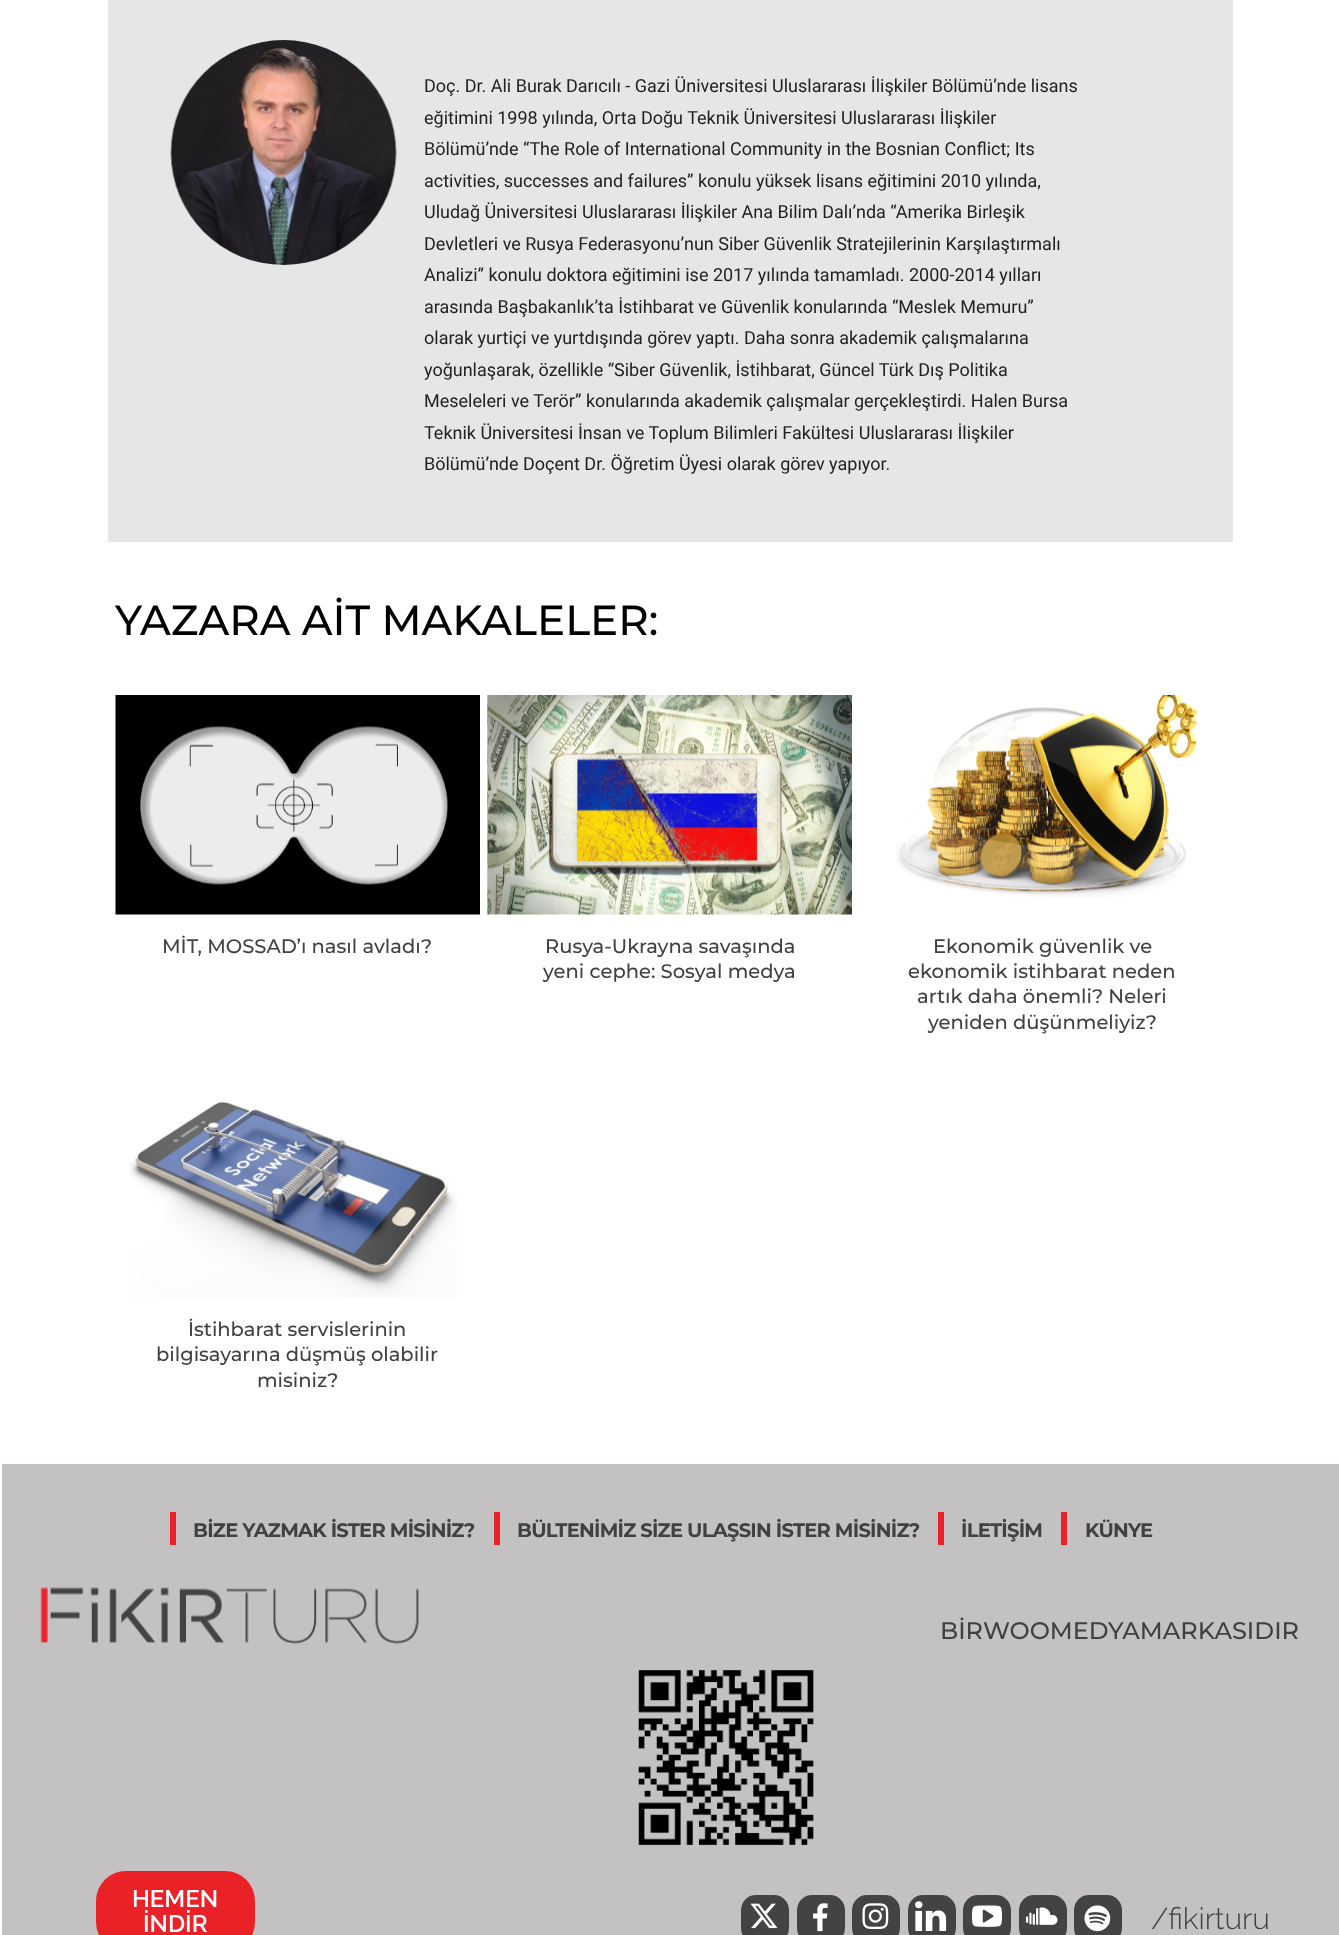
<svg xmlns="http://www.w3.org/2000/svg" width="1339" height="1935">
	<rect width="100%" height="100%" fill="#FFFFFF" />
	<rect x="108" y="0" width="1125" height="542" fill="#E5E6E6" />
	<image x="170" y="40" width="227" height="225" href="assets/img1.png" />
	<g font-family="Roboto" font-size="18" fill="#222222">
		<text x="424" y="92">Doç. Dr. Ali Burak Darıcılı - Gazi Üniversitesi Uluslararası İlişkiler Bölümü’nde lisans</text>
		<text x="424" y="124">eğitimini 1998 yılında, Orta Doğu Teknik Üniversitesi Uluslararası İlişkiler</text>
		<text x="424" y="155">Bölümü’nde “The Role of International Community in the Bosnian Conflict; Its</text>
		<text x="424" y="187">activities, successes and failures” konulu yüksek lisans eğitimini 2010 yılında,</text>
		<text x="424" y="218">Uludağ Üniversitesi Uluslararası İlişkiler Ana Bilim Dalı’nda “Amerika Birleşik</text>
		<text x="424" y="250">Devletleri ve Rusya Federasyonu’nun Siber Güvenlik Stratejilerinin Karşılaştırmalı</text>
		<text x="424" y="281">Analizi” konulu doktora eğitimini ise 2017 yılında tamamladı. 2000-2014 yılları</text>
		<text x="424" y="313">arasında Başbakanlık’ta İstihbarat ve Güvenlik konularında “Meslek Memuru”</text>
		<text x="424" y="344">olarak yurtiçi ve yurtdışında görev yaptı. Daha sonra akademik çalışmalarına</text>
		<text x="424" y="376">yoğunlaşarak, özellikle “Siber Güvenlik, İstihbarat, Güncel Türk Dış Politika</text>
		<text x="424" y="407">Meseleleri ve Terör” konularında akademik çalışmalar gerçekleştirdi. Halen Bursa</text>
		<text x="424" y="439">Teknik Üniversitesi İnsan ve Toplum Bilimleri Fakültesi Uluslararası İlişkiler</text>
		<text x="424" y="470">Bölümü’nde Doçent Dr. Öğretim Üyesi olarak görev yapıyor.</text>
	</g>
	<text x="115" y="635" font-family="Montserrat" font-size="42" font-weight="500" fill="#000000">YAZARA AİT MAKALELER:</text>
	<image x="115" y="695" width="365" height="220" href="assets/img2.png" />
	<text x="162" y="953" font-family="Montserrat" font-size="19.5" font-weight="500" fill="#414141">MİT, MOSSAD’ı nasıl avladı?</text>
	<image x="487" y="695" width="365" height="220" href="assets/img3.png" />
	<g font-family="Montserrat" font-size="19.5" font-weight="500" fill="#414141">
		<text x="545" y="953">Rusya-Ukrayna savaşında</text>
		<text x="543" y="978">yeni cephe: Sosyal medya</text>
	</g>
	<image x="896" y="695" width="302" height="203" href="assets/img4.png" />
	<g font-family="Montserrat" font-size="19.5" font-weight="500" fill="#414141">
		<text x="933" y="953">Ekonomik güvenlik ve</text>
		<text x="908" y="978">ekonomik istihbarat neden</text>
		<text x="917" y="1003">artık daha önemli? Neleri</text>
		<text x="928" y="1029">yeniden düşünmeliyiz?</text>
	</g>
	<image x="129" y="1102" width="328" height="196" href="assets/img5.png" />
	<g font-family="Montserrat" font-size="19.5" font-weight="500" fill="#414141">
		<text x="188" y="1336">İstihbarat servislerinin</text>
		<text x="156" y="1361">bilgisayarına düşmüş olabilir</text>
		<text x="257" y="1387">misiniz?</text>
	</g>
	<rect x="2" y="1464" width="1337" height="471" fill="#C3C1C1" />
	<rect x="170" y="1512" width="6" height="33" fill="#EA2127" />
	<text x="193" y="1537" font-family="Montserrat" font-size="19.5" font-weight="700" letter-spacing="-0.75" fill="#414141">BİZE YAZMAK İSTER MİSİNİZ?</text>
	<rect x="494" y="1512" width="6" height="33" fill="#EA2127" />
	<text x="517" y="1537" font-family="Montserrat" font-size="19.5" font-weight="700" letter-spacing="-0.75" fill="#414141">BÜLTENİMİZ SİZE ULAŞSIN İSTER MİSİNİZ?</text>
	<rect x="938" y="1512" width="6" height="33" fill="#EA2127" />
	<text x="961" y="1537" font-family="Montserrat" font-size="19.5" font-weight="700" letter-spacing="-0.75" fill="#414141">İLETİŞİM</text>
	<rect x="1061" y="1512" width="6" height="33" fill="#EA2127" />
	<text x="1085" y="1537" font-family="Montserrat" font-size="19.5" font-weight="700" letter-spacing="-0.75" fill="#414141">KÜNYE</text>
	<image x="40" y="1587" width="379" height="57" href="assets/img6.png" />
	<text x="940" y="1639" font-family="Montserrat" font-size="24" font-weight="500" fill="#414141">BİRWOOMEDYAMARKASIDIR</text>
	<image x="638" y="1669" width="176" height="177" href="assets/img7.png" />
	<rect x="96" y="1871" width="159" height="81" rx="30" fill="#EA2127" />
	<g font-family="Raleway" font-size="24" font-weight="600" fill="#FFFFFF">
		<text x="132" y="1907">HEMEN</text>
		<text x="143" y="1932">İNDİR</text>
	</g>
	<rect x="741" y="1895" width="48" height="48" rx="15" fill="#424343" />
	<image x="750" y="1903" width="28" height="26" href="assets/img8.png" />
	<rect x="797" y="1895" width="48" height="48" rx="15" fill="#424343" />
	<image x="813" y="1903" width="15" height="29" href="assets/img9.png" />
	<rect x="852" y="1895" width="48" height="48" rx="15" fill="#424343" />
	<image x="862" y="1903" width="27" height="26" href="assets/img10.png" />
	<rect x="908" y="1895" width="48" height="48" rx="15" fill="#424343" />
	<image x="915" y="1901" width="32" height="30" href="assets/img11.png" />
	<rect x="963" y="1895" width="48" height="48" rx="15" fill="#424343" />
	<image x="972" y="1905" width="30" height="22" href="assets/img12.png" />
	<rect x="1019" y="1895" width="48" height="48" rx="15" fill="#424343" />
	<image x="1026" y="1907" width="32" height="18" href="assets/img13.png" />
	<rect x="1074" y="1895" width="48" height="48" rx="15" fill="#424343" />
	<image x="1084" y="1905" width="27" height="27" href="assets/img14.png" />
	<text x="1151" y="1929" font-family="Raleway" font-size="30" font-weight="300" fill="#414141">/fikirturu</text>
</svg>
